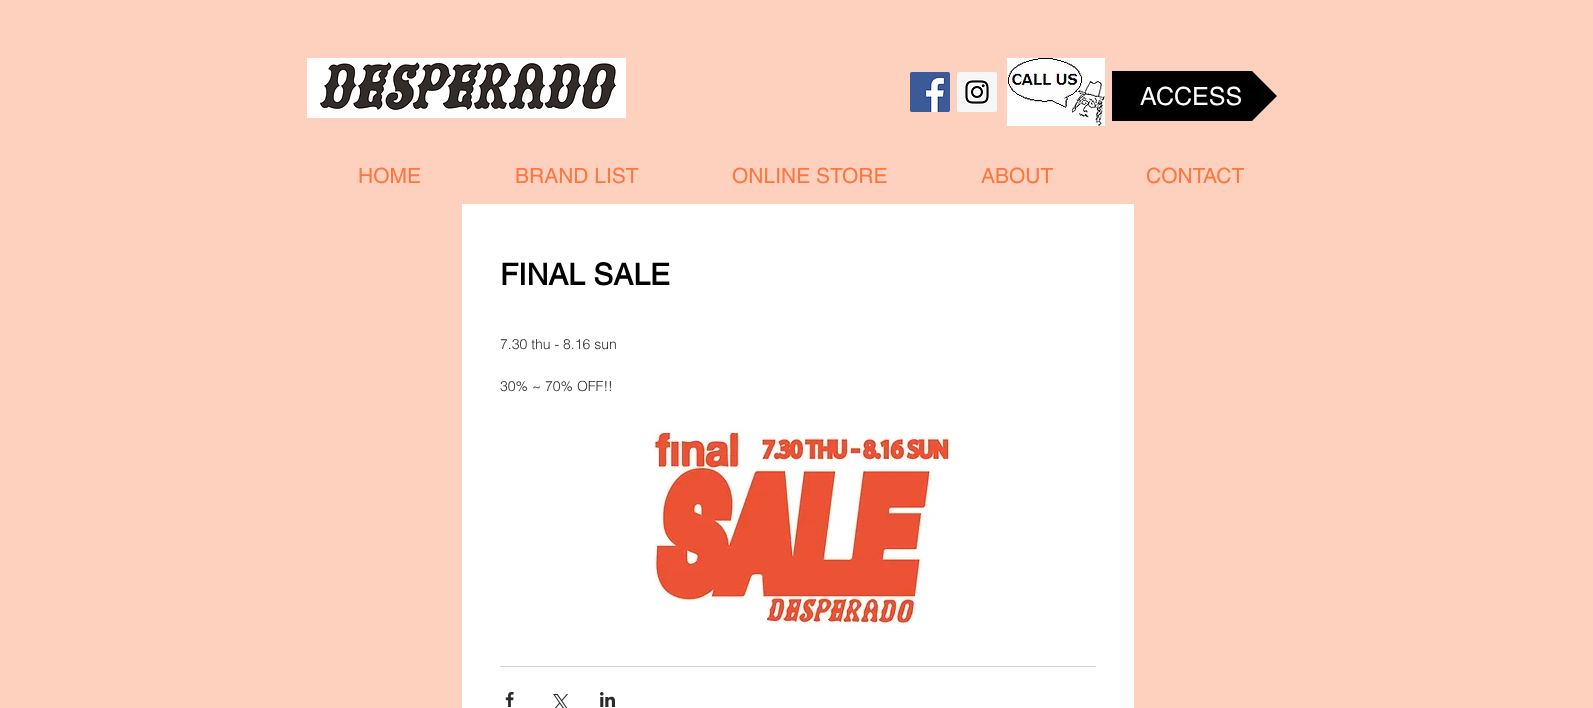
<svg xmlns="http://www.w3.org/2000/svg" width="1593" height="708">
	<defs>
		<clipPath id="clip1"><rect x="1112" y="71" width="165" height="50" /></clipPath>
	</defs>
	<rect width="100%" height="100%" fill="#FED1BF" />
	<image x="307" y="58" width="319" height="60" href="assets/img1.png" />
	<image x="910" y="72" width="40" height="40" href="assets/img2.png" />
	<image x="957" y="72" width="40" height="40" href="assets/img3.png" />
	<image x="1007" y="58" width="98" height="68" href="assets/img4.png" />
	<rect x="1112" y="71" width="115" height="50" fill="#000000" />
	<g clip-path="url(#clip1)">
		<path d="M1277 96H1227V46ZM1227 96H1277L1227 146Z" fill="#000000" />
	</g>
	<text x="1140" y="105" font-family="helvetica" font-size="25" fill="#FFFFFF">ACCESS</text>
	<g font-family="helvetica" font-size="21" fill="#FD763F">
		<text x="358" y="183">HOME</text>
		<text x="515" y="183">BRAND LIST</text>
		<text x="732" y="183">ONLINE STORE</text>
		<text x="981" y="183">ABOUT</text>
		<text x="1146" y="183">CONTACT</text>
	</g>
	<rect x="462" y="204" width="672" height="504" fill="#FFFFFF" />
	<text x="500" y="285" font-family="helvetica" font-size="30" font-weight="700" fill="#000000">FINAL SALE</text>
	<g font-family="helvetica" font-size="14" font-weight="300" fill="#2A2A2A">
		<text x="500" y="349">7.30 thu - 8.16 sun</text>
		<text x="500" y="391">30% ~ 70% OFF!!</text>
	</g>
	<image x="654" y="428" width="297" height="201" href="assets/img5.png" />
	<rect x="500" y="666" width="596" height="1" fill="#D4D4D4" />
	<image x="505" y="692" width="9" height="15" href="assets/img6.png" />
	<image x="553" y="694" width="15" height="14" href="assets/img7.png" />
	<image x="600" y="692" width="15" height="15" href="assets/img8.png" />
</svg>
